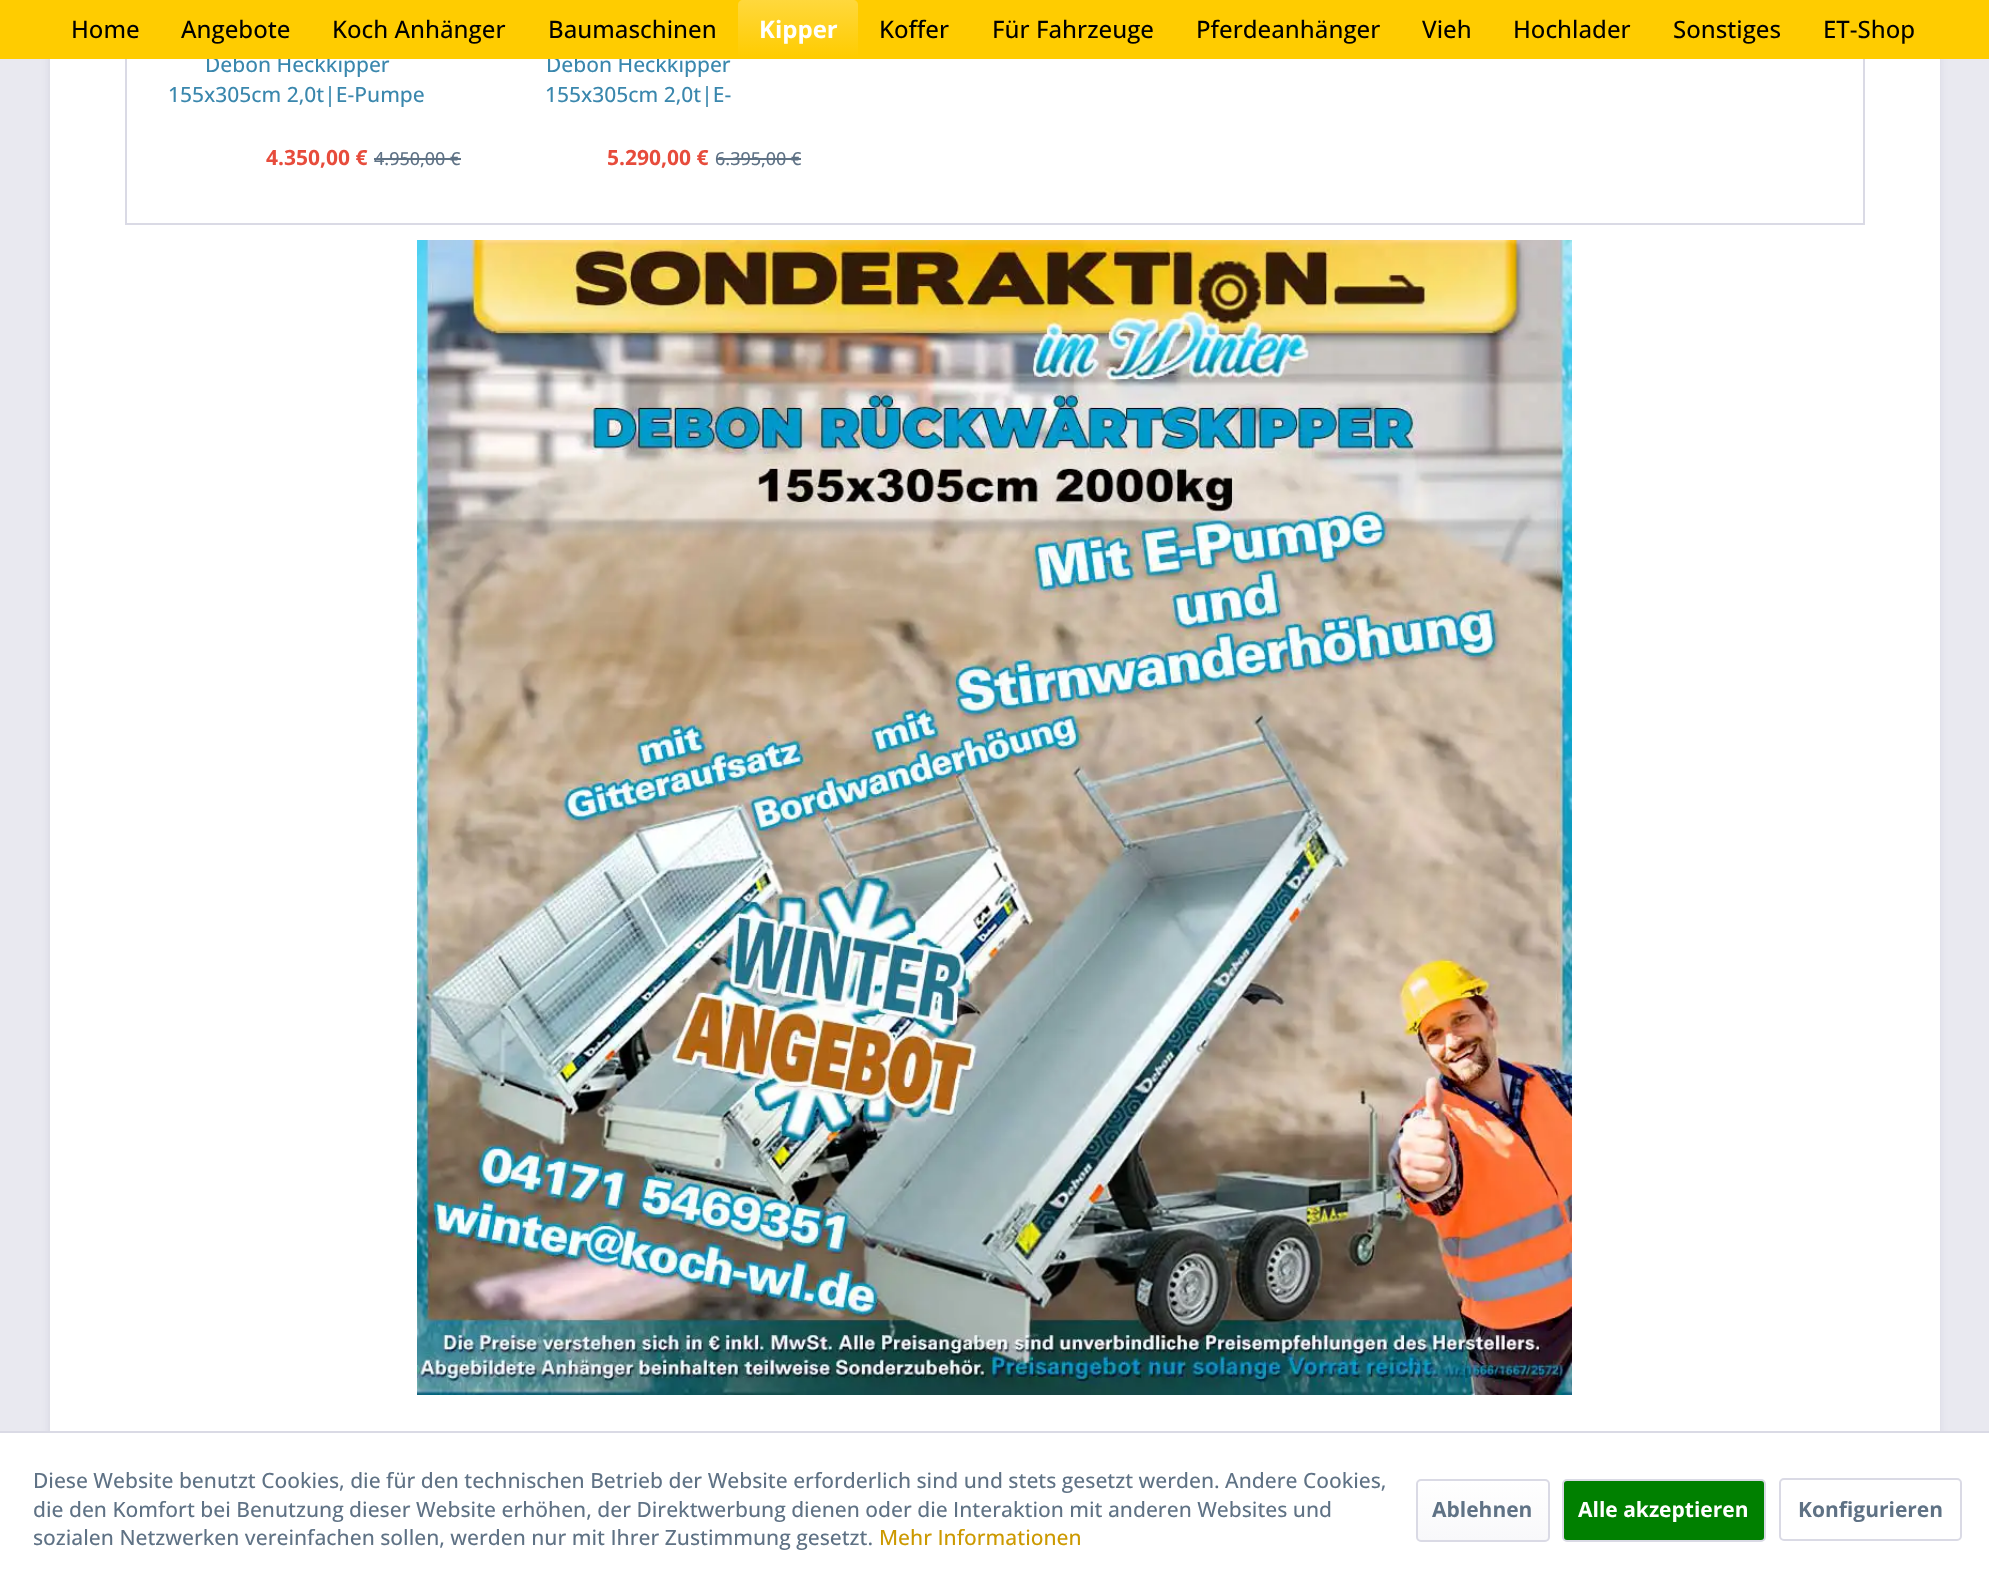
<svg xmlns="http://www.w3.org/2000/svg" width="1989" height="1583">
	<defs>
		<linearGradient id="g1" gradientUnits="userSpaceOnUse" x1="798" y1="0" x2="798" y2="57"><stop offset="0" stop-color="#FFD83D" /><stop offset="1" stop-color="#FFCC00" /></linearGradient>
		<linearGradient id="g2" gradientUnits="userSpaceOnUse" x1="1483" y1="1481" x2="1483" y2="1541"><stop offset="0" stop-color="#FFFFFF" /><stop offset="1" stop-color="#F8F8FA" /></linearGradient>
	</defs>
	<rect width="100%" height="100%" fill="#E9E9F0" />
	<rect x="48" y="-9" width="1893" height="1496" fill="#DADAE5" filter="blur(3px)" />
	<rect x="50" y="59" width="1890" height="1372" fill="#FFFFFF" />
	<rect x="126" y="-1" width="1738" height="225" fill="none" stroke="#DADAE5" stroke-width="2" />
	<g font-family="Open Sans" font-size="21" font-weight="500" fill="#3A87AD">
		<text x="205" y="72">Debon Heckkipper</text>
		<text x="546" y="72">Debon Heckkipper</text>
	</g>
	<rect x="0" y="0" width="1989" height="59" fill="#FFCC00" />
	<g font-family="Open Sans" font-size="24" font-weight="500" fill="#000000">
		<text x="71" y="38">Home</text>
		<text x="181" y="38">Angebote</text>
		<text x="332" y="38">Koch Anhänger</text>
		<text x="548" y="38">Baumaschinen</text>
	</g>
	<path d="M743 0H853C856 0 858 2 858 5V57H738V5C738 2 740 0 743 0Z" fill="url(#g1)" />
	<text x="759" y="38" font-family="Open Sans" font-size="24" font-weight="700" fill="#FFFFFF">Kipper</text>
	<g font-family="Open Sans" font-size="24" font-weight="500" fill="#000000">
		<text x="879" y="38">Koffer</text>
		<text x="992" y="38">Für Fahrzeuge</text>
		<text x="1196" y="38">Pferdeanhänger</text>
		<text x="1422" y="38">Vieh</text>
		<text x="1513" y="38">Hochlader</text>
		<text x="1673" y="38">Sonstiges</text>
		<text x="1823" y="38">ET-Shop</text>
	</g>
	<text x="168" y="102" font-family="Open Sans" font-size="21" font-weight="500" fill="#3A87AD">155x305cm 2,0t|E-Pumpe</text>
	<text x="266" y="165" font-family="Open Sans" font-size="21" font-weight="700" fill="#E74C3C">4.350,00 €</text>
	<text x="374" y="165" font-family="Open Sans" font-size="18" font-weight="500" fill="#5F7285">4.950,00 €</text>
	<rect x="374" y="158" width="87" height="2" fill="#5F7285" />
	<text x="545" y="102" font-family="Open Sans" font-size="21" font-weight="500" fill="#3A87AD">155x305cm 2,0t|E-</text>
	<text x="607" y="165" font-family="Open Sans" font-size="21" font-weight="700" fill="#E74C3C">5.290,00 €</text>
	<text x="715" y="165" font-family="Open Sans" font-size="18" font-weight="500" fill="#5F7285">6.395,00 €</text>
	<rect x="716" y="158" width="85" height="2" fill="#5F7285" />
	<image x="417" y="240" width="1155" height="1155" href="assets/img1.png" />
	<rect x="0" y="1433" width="1989" height="150" fill="#FFFFFF" />
	<rect x="0" y="1431" width="1989" height="2" fill="#DADAE5" />
	<g font-family="Open Sans" font-size="21" font-weight="500" fill="#5F7285">
		<text x="33" y="1488">Diese Website benutzt Cookies, die für den technischen Betrieb der Website erforderlich sind und stets gesetzt werden. Andere Cookies,</text>
		<text x="33" y="1517">die den Komfort bei Benutzung dieser Website erhöhen, der Direktwerbung dienen oder die Interaktion mit anderen Websites und</text>
		<text x="33" y="1545">sozialen Netzwerken vereinfachen sollen, werden nur mit Ihrer Zustimmung gesetzt.</text>
	</g>
	<text x="879" y="1545" font-family="Open Sans" font-size="21" font-weight="500" fill="#CC9900">Mehr Informationen</text>
	<rect x="1418" y="1481" width="130" height="60" rx="3" fill="url(#g2)" />
	<rect x="1417" y="1480" width="132" height="61" rx="4" fill="none" stroke="#DADAE5" stroke-width="2" />
	<text x="1432" y="1517" font-family="Open Sans" font-size="21" font-weight="700" fill="#5F7285">Ablehnen</text>
	<rect x="1563" y="1480" width="202" height="61" rx="4" fill="#008000" stroke="#DADAE5" stroke-width="2" />
	<text x="1578" y="1517" font-family="Open Sans" font-size="21" font-weight="700" fill="#FFFFFF">Alle akzeptieren</text>
	<rect x="1780" y="1479" width="181" height="61" rx="4" fill="none" stroke="#DADAE5" stroke-width="2" />
	<text x="1798" y="1517" font-family="Open Sans" font-size="21" font-weight="700" fill="#5F7285">Konfigurieren</text>
</svg>
